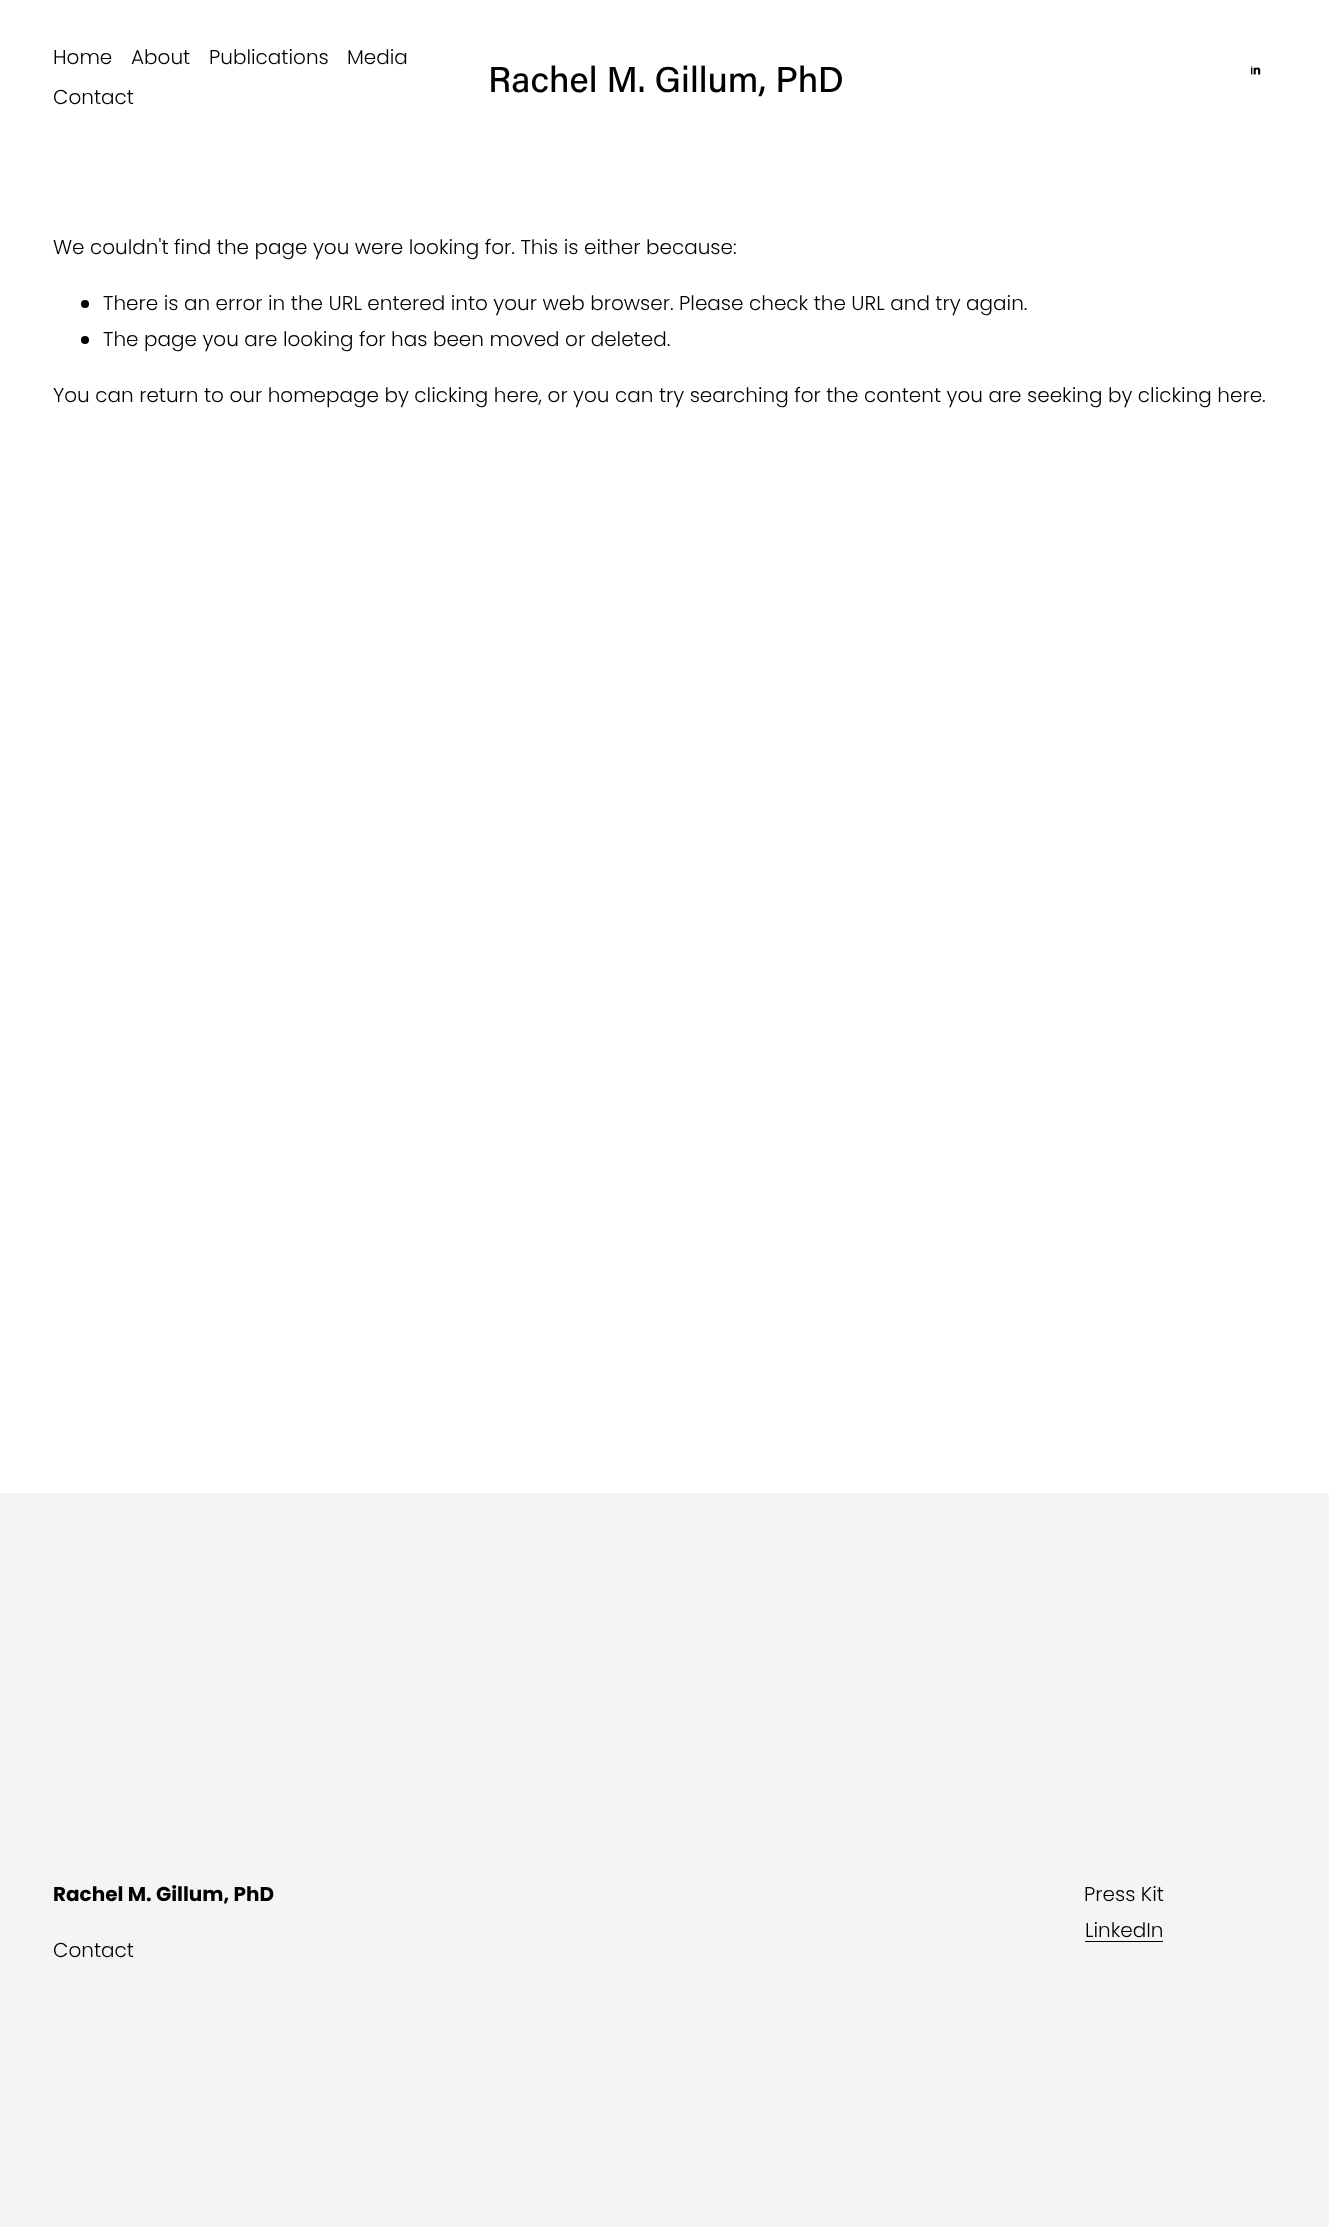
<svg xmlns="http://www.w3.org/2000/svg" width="1329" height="2227">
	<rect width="100%" height="100%" fill="#FFFFFF" />
	<g font-family="Poppins" font-size="20" font-weight="300" fill="#000000">
		<text x="53" y="64">Home</text>
		<text x="131" y="64">About</text>
		<text x="209" y="64">Publications</text>
		<text x="347" y="64">Media</text>
		<text x="53" y="104">Contact</text>
	</g>
	<text x="488" y="92" font-family="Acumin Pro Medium" font-size="36" font-weight="500" fill="#000000">Rachel M. Gillum, PhD</text>
	<image x="1251" y="66" width="10" height="9" href="assets/img1.png" />
	<text x="53" y="254" font-family="Poppins" font-size="20" font-weight="300" fill="#000000">We couldn't find the page you were looking for. This is either because:</text>
	<circle cx="85" cy="304" r="4" fill="#000000" />
	<text x="103" y="310" font-family="Poppins" font-size="20" font-weight="300" fill="#000000">There is an error in the URL entered into your web browser. Please check the URL and try again.</text>
	<circle cx="85" cy="340" r="4" fill="#000000" />
	<g font-family="Poppins" font-size="20" font-weight="300" fill="#000000">
		<text x="103" y="346">The page you are looking for has been moved or deleted.</text>
		<text x="53" y="402">You can return to our homepage by clicking here, or you can try searching for the content you are seeking by clicking here.</text>
	</g>
	<rect x="0" y="1493" width="1329" height="734" fill="#F4F4F3" />
	<text x="53" y="1901" font-family="Poppins" font-size="20" font-weight="700" fill="#000000">Rachel M. Gillum, PhD</text>
	<g font-family="Poppins" font-size="20" font-weight="300" fill="#000000">
		<text x="53" y="1957">Contact</text>
		<text x="1084" y="1901">Press Kit</text>
		<text x="1085" y="1937">LinkedIn</text>
	</g>
	<rect x="1085" y="1941" width="78" height="1" fill="#000000" />
</svg>
